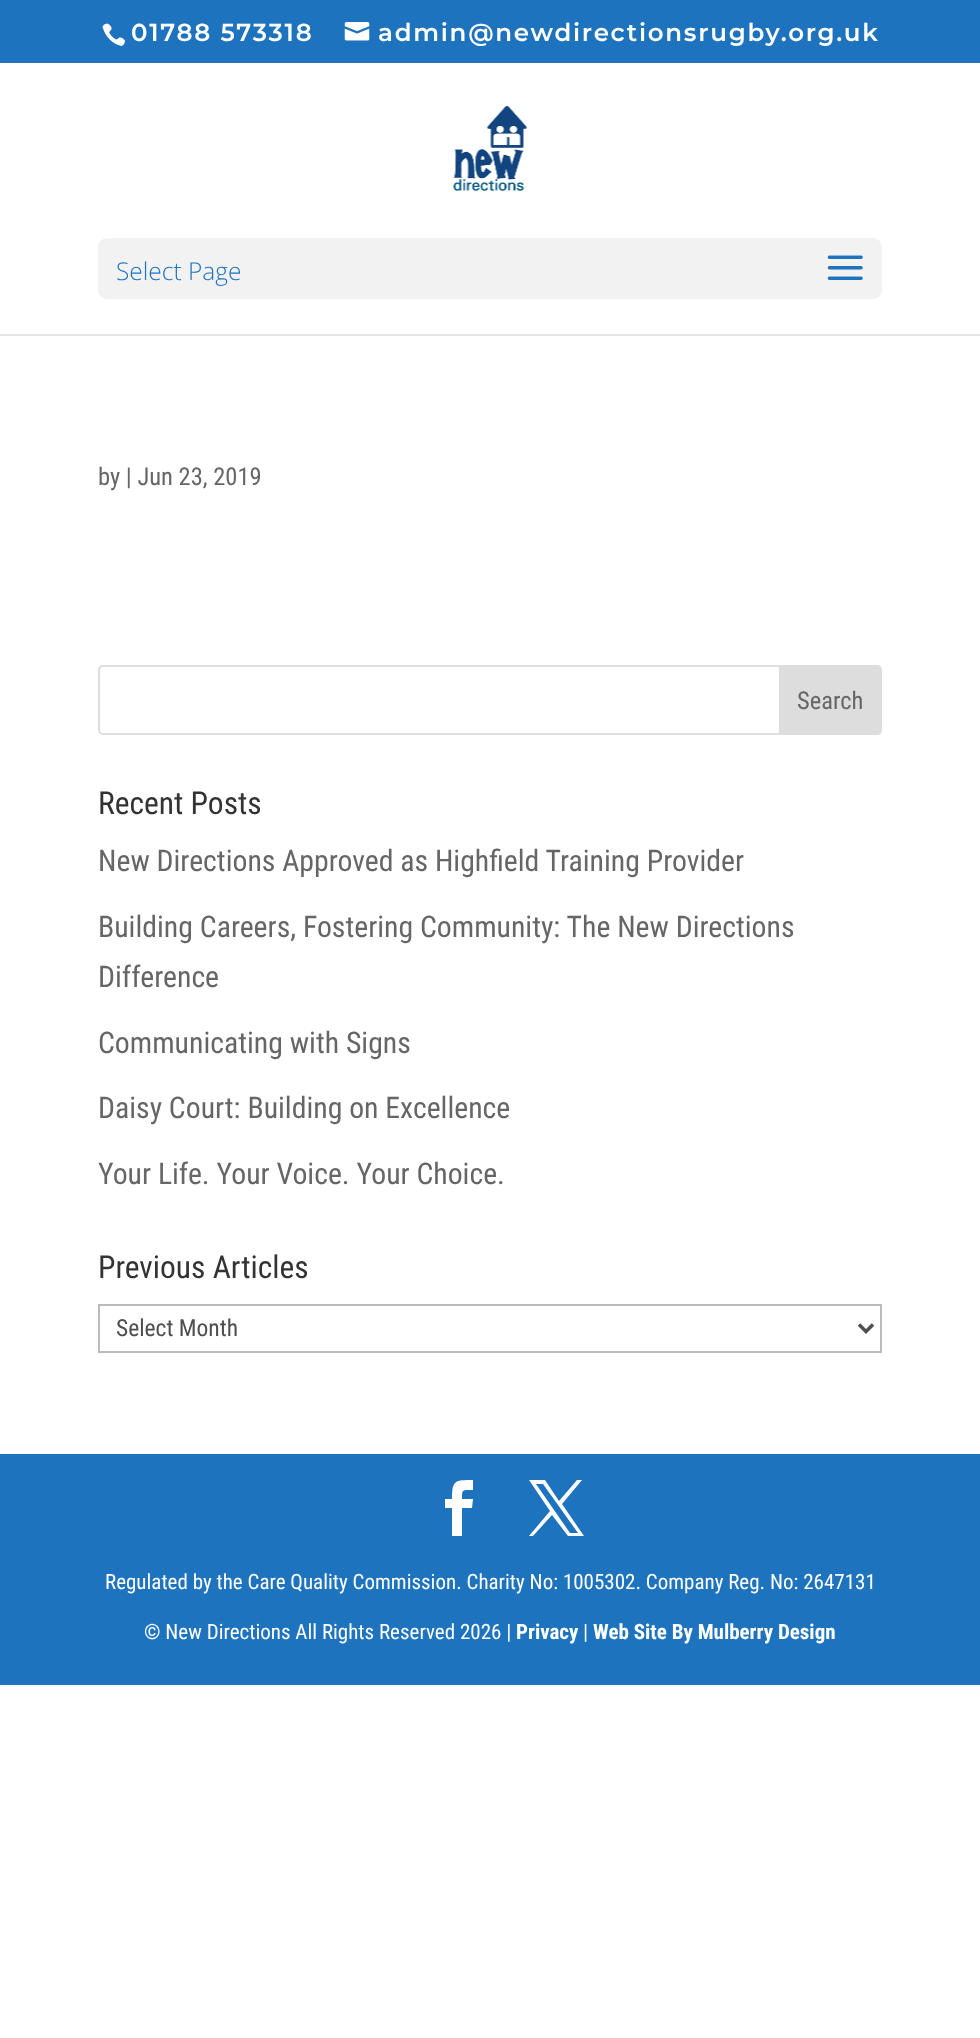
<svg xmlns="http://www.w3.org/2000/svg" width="980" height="2038">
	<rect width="100%" height="100%" fill="#FFFFFF" />
	<rect x="0" y="0" width="980" height="63" fill="#1E73BE" />
	<image x="102" y="23" width="23" height="23" href="assets/img1.png" />
	<text x="131" y="41" font-family="Montserrat" font-size="24.5" font-weight="600" letter-spacing="1.75" fill="#FFFFFF">01788 573318</text>
	<image x="344" y="22" width="26" height="19" href="assets/img2.png" />
	<text x="378" y="41" font-family="Montserrat" font-size="24.5" font-weight="600" letter-spacing="1.75" fill="#FFFFFF">admin@newdirectionsrugby.org.uk</text>
	<rect x="0" y="334" width="980" height="2" fill="#E6E6E6" />
	<image x="453" y="106" width="75" height="85" href="assets/img3.png" />
	<rect x="98" y="238" width="784" height="61" rx="9" fill="#F2F2F2" />
	<text x="116" y="280" font-family="Open Sans" font-size="24.5" font-weight="300" fill="#1E73BE">Select Page</text>
	<image x="827" y="255" width="36" height="25" href="assets/img4.png" />
	<text x="98" y="485" font-family="Roboto Condensed" font-size="24.5" fill="#666666">by | Jun 23, 2019</text>
	<rect x="99" y="666" width="782" height="68" rx="4" fill="none" stroke="#DDDDDD" stroke-width="2" />
	<path d="M780 666H877C879 666 881 668 881 670V730C881 732 879 734 877 734H780Z" fill="#DDDDDD" stroke="#DDDDDD" stroke-width="2" />
	<text x="797" y="709" font-family="Roboto Condensed" font-size="24.5" fill="#666666">Search</text>
	<text x="98" y="814" font-family="Roboto Condensed" font-size="31.5" fill="#333333">Recent Posts</text>
	<g font-family="Roboto Condensed" font-size="29.75" fill="#666666">
		<text x="98" y="871">New Directions Approved as Highfield Training Provider</text>
		<text x="98" y="937">Building Careers, Fostering Community: The New Directions</text>
		<text x="98" y="987">Difference</text>
		<text x="98" y="1053">Communicating with Signs</text>
		<text x="98" y="1118">Daisy Court: Building on Excellence</text>
		<text x="98" y="1184">Your Life. Your Voice. Your Choice.</text>
	</g>
	<text x="98" y="1278" font-family="Roboto Condensed" font-size="31.5" fill="#333333">Previous Articles</text>
	<rect x="99" y="1305" width="782" height="47" fill="none" stroke="#BBBBBB" stroke-width="2" />
	<path d="M859 1324.5L866 1331.5L873 1324.5" fill="none" stroke="#4E4E4E" stroke-width="3.5" />
	<text x="116" y="1336" font-family="Roboto Condensed" font-size="23.5" fill="#4E4E4E">Select Month</text>
	<rect x="0" y="1454" width="980" height="231" fill="#1E73BE" />
	<path d="M452 1536H462V1508H472L473 1499H462C462 1489 462 1490 473 1490V1480C455 1480 452 1480 452 1499H445V1508H452Z" fill="#FFFFFF" />
	<path d="M529 1480L550 1511L529 1536H533L552 1515L568 1536H584L562 1504L582 1480H577L559 1501L545 1480ZM536 1484H543L578 1533H570Z" fill="#FFFFFF" />
	<g font-family="Roboto Condensed" font-size="21" fill="#FFFFFF">
		<text x="105" y="1589">Regulated by the Care Quality Commission. Charity No: 1005302. Company Reg. No: 2647131</text>
		<text x="144" y="1639">© New Directions All Rights Reserved 2026 |</text>
	</g>
	<text x="516" y="1639" font-family="Roboto Condensed" font-size="21" font-weight="700" fill="#FFFFFF">Privacy</text>
	<text x="583" y="1639" font-family="Roboto Condensed" font-size="21" fill="#FFFFFF">|</text>
	<text x="593" y="1639" font-family="Roboto Condensed" font-size="21" font-weight="700" fill="#FFFFFF">Web Site By Mulberry Design</text>
</svg>
